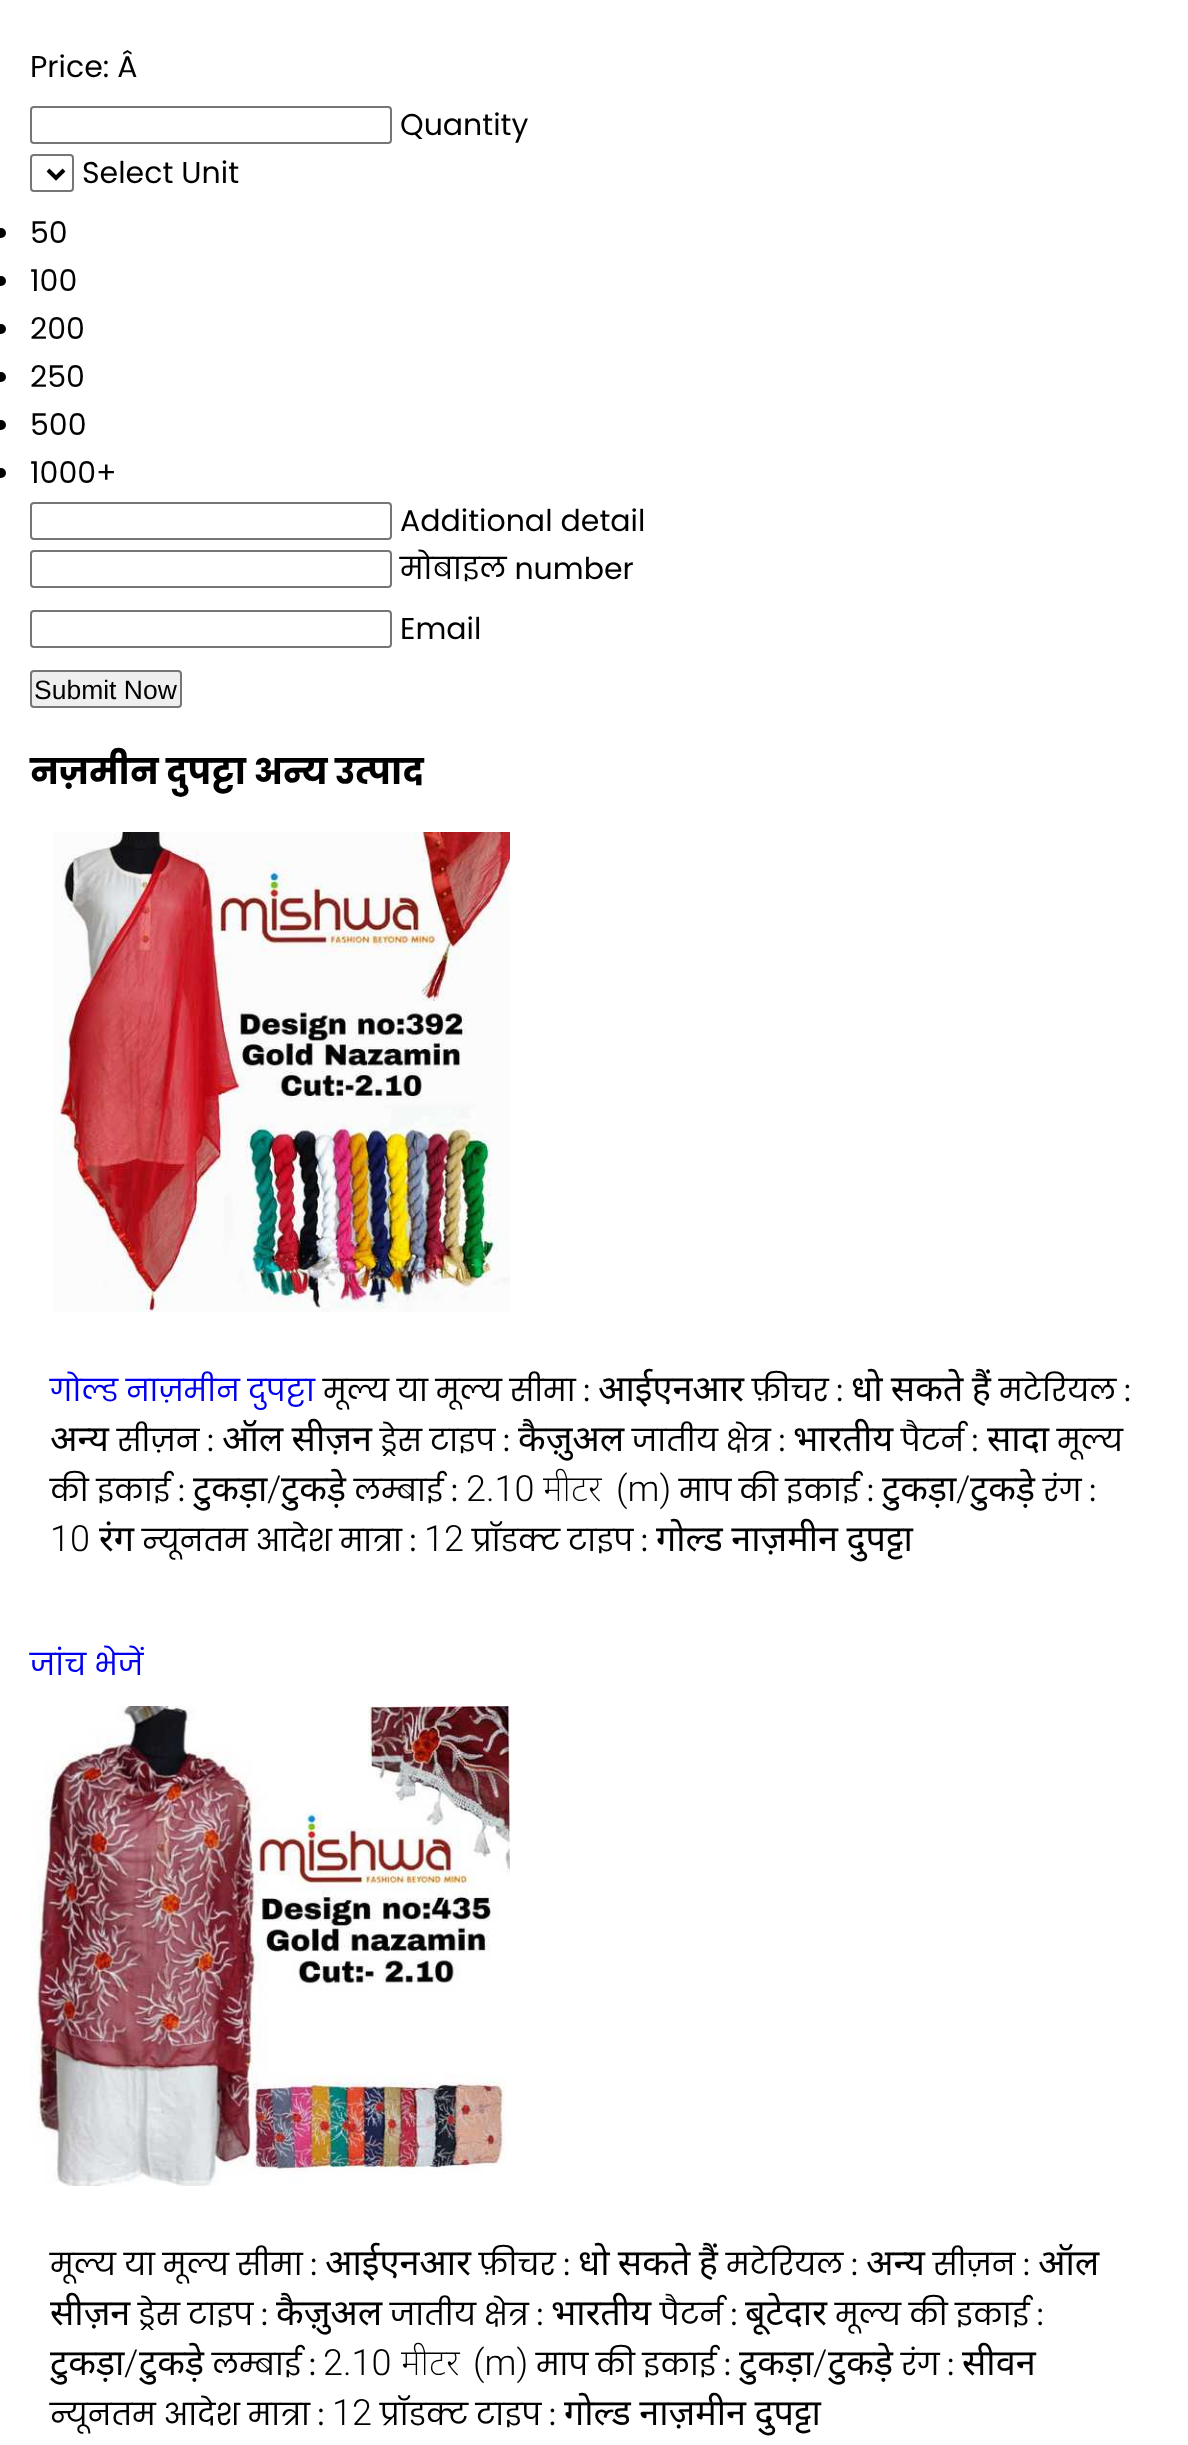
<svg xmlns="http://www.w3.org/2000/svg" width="1188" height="2445">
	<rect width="100%" height="100%" fill="#FFFFFF" />
	<text x="30" y="77" font-family="Poppins" font-size="30" fill="#000000">Price: Â</text>
	<rect x="31" y="107" width="360" height="36" rx="3" fill="none" stroke="#767676" stroke-width="2" />
	<text x="400" y="135" font-family="Poppins" font-size="30" fill="#000000">Quantity</text>
	<rect x="31" y="155" width="42" height="36" rx="3" fill="none" stroke="#767676" stroke-width="2" />
	<path d="M48 170L56 178L64 170" fill="none" stroke="#000000" stroke-width="4" />
	<text x="82" y="183" font-family="Poppins" font-size="30" fill="#000000">Select Unit</text>
	<circle cx="1" cy="233" r="5" fill="#000000" />
	<text x="30" y="243" font-family="Poppins" font-size="30" fill="#000000">50</text>
	<circle cx="1" cy="281" r="5" fill="#000000" />
	<text x="30" y="291" font-family="Poppins" font-size="30" fill="#000000">100</text>
	<circle cx="1" cy="329" r="5" fill="#000000" />
	<text x="30" y="339" font-family="Poppins" font-size="30" fill="#000000">200</text>
	<circle cx="1" cy="377" r="5" fill="#000000" />
	<text x="30" y="387" font-family="Poppins" font-size="30" fill="#000000">250</text>
	<circle cx="1" cy="425" r="5" fill="#000000" />
	<text x="30" y="435" font-family="Poppins" font-size="30" fill="#000000">500</text>
	<circle cx="1" cy="473" r="5" fill="#000000" />
	<text x="30" y="483" font-family="Poppins" font-size="30" fill="#000000">1000+</text>
	<rect x="31" y="503" width="360" height="36" rx="3" fill="none" stroke="#767676" stroke-width="2" />
	<text x="400" y="531" font-family="Poppins" font-size="30" fill="#000000">Additional detail</text>
	<rect x="31" y="551" width="360" height="36" rx="3" fill="none" stroke="#767676" stroke-width="2" />
	<text x="400" y="579" font-family="Poppins" font-size="30" fill="#000000">मोबाइल number</text>
	<rect x="31" y="611" width="360" height="36" rx="3" fill="none" stroke="#767676" stroke-width="2" />
	<text x="400" y="639" font-family="Poppins" font-size="30" fill="#000000">Email</text>
	<rect x="31" y="671" width="150" height="36" rx="3" fill="#EFEFEF" stroke="#767676" stroke-width="2" />
	<text x="34" y="699" font-family="Liberation Sans" font-size="26.5" fill="#000000">Submit Now</text>
	<text x="30" y="784" font-family="Poppins" font-size="35.1" font-weight="700" fill="#000000">नज़मीन दुपट्टा अन्य उत्पाद</text>
	<image x="53" y="832" width="457" height="480" href="assets/img1.png" />
	<text x="50" y="1401" font-family="Poppins" font-size="30" fill="#0000EE">गोल्ड नाज़मीन दुपट्टा</text>
	<text x="323" y="1401" font-family="Poppins" font-size="30" fill="#000000">मूल्य या मूल्य सीमा :</text>
	<text x="598" y="1401" font-family="Noto Sans" font-size="36" fill="#000000">आईएनआर</text>
	<text x="752" y="1401" font-family="Poppins" font-size="30" fill="#000000">फ़ीचर :</text>
	<text x="851" y="1401" word-spacing="-1" font-family="Noto Sans" font-size="36" fill="#000000">धो सकते हैं</text>
	<text x="999" y="1401" font-family="Poppins" font-size="30" fill="#000000">मटेरियल :</text>
	<text x="50" y="1451" font-family="Noto Sans" font-size="36" fill="#000000">अन्य</text>
	<text x="117" y="1451" font-family="Poppins" font-size="30" fill="#000000">सीज़न :</text>
	<text x="222" y="1451" word-spacing="-1" font-family="Noto Sans" font-size="36" fill="#000000">ऑल सीज़न</text>
	<text x="380" y="1451" font-family="Poppins" font-size="30" fill="#000000">ड्रेस टाइप :</text>
	<text x="518" y="1451" font-family="Noto Sans" font-size="36" fill="#000000">कैज़ुअल</text>
	<text x="632" y="1451" font-family="Poppins" font-size="30" fill="#000000">जातीय क्षेत्र :</text>
	<text x="793" y="1451" font-family="Noto Sans" font-size="36" fill="#000000">भारतीय</text>
	<text x="901" y="1451" font-family="Poppins" font-size="30" fill="#000000">पैटर्न :</text>
	<text x="987" y="1451" font-family="Noto Sans" font-size="36" fill="#000000">सादा</text>
	<g font-family="Poppins" font-size="30" fill="#000000">
		<text x="1057" y="1451">मूल्य</text>
		<text x="50" y="1501">की इकाई :</text>
	</g>
	<text x="267" y="1501" font-family="Roboto" font-size="36" font-weight="300" fill="#000000">/</text>
	<text x="281" y="1501" font-family="Noto Sans" font-size="36" fill="#000000">टुकड़े</text>
	<text x="354" y="1501" font-family="Poppins" font-size="30" fill="#000000">लम्बाई :</text>
	<text x="543" y="1501" font-family="Noto Sans" font-size="36" font-weight="200" fill="#000000">मीटर</text>
	<text x="616" y="1501" font-family="Roboto" font-size="36" font-weight="300" fill="#000000">(m)</text>
	<text x="679" y="1501" font-family="Poppins" font-size="30" fill="#000000">माप की इकाई :</text>
	<text x="956" y="1501" font-family="Roboto" font-size="36" font-weight="300" fill="#000000">/</text>
	<text x="970" y="1501" font-family="Noto Sans" font-size="36" fill="#000000">टुकड़े</text>
	<text x="1043" y="1501" font-family="Poppins" font-size="30" fill="#000000">रंग :</text>
	<text x="193" y="1501" font-family="Noto Sans" font-size="36" fill="#000000">टुकड़ा</text>
	<text x="466" y="1501" font-family="Roboto" font-size="36" font-weight="300" fill="#000000">2.10</text>
	<text x="882" y="1501" font-family="Noto Sans" font-size="36" fill="#000000">टुकड़ा</text>
	<text x="50" y="1551" font-family="Roboto" font-size="36" font-weight="300" fill="#000000">10</text>
	<text x="99" y="1551" font-family="Noto Sans" font-size="36" fill="#000000">रंग</text>
	<text x="142" y="1551" font-family="Poppins" font-size="30" fill="#000000">न्यूनतम आदेश मात्रा :</text>
	<text x="424" y="1551" font-family="Roboto" font-size="36" font-weight="300" fill="#000000">12</text>
	<text x="472" y="1551" font-family="Poppins" font-size="30" fill="#000000">प्रॉडक्ट टाइप :</text>
	<text x="656" y="1551" word-spacing="-1" font-family="Noto Sans" font-size="36" fill="#000000">गोल्ड नाज़मीन दुपट्टा</text>
	<text x="30" y="1675" font-family="Poppins" font-size="30" fill="#0000EE">जांच भेजें</text>
	<image x="30" y="1706" width="480" height="480" href="assets/img2.png" />
	<text x="50" y="2275" font-family="Poppins" font-size="30" fill="#000000">मूल्य या मूल्य सीमा :</text>
	<text x="325" y="2275" font-family="Noto Sans" font-size="36" fill="#000000">आईएनआर</text>
	<text x="479" y="2275" font-family="Poppins" font-size="30" fill="#000000">फ़ीचर :</text>
	<text x="578" y="2275" word-spacing="-1" font-family="Noto Sans" font-size="36" fill="#000000">धो सकते हैं</text>
	<text x="726" y="2275" font-family="Poppins" font-size="30" fill="#000000">मटेरियल :</text>
	<text x="866" y="2275" font-family="Noto Sans" font-size="36" fill="#000000">अन्य</text>
	<text x="933" y="2275" font-family="Poppins" font-size="30" fill="#000000">सीज़न :</text>
	<g font-family="Noto Sans" font-size="36" fill="#000000">
		<text x="1038" y="2275">ऑल</text>
		<text x="50" y="2325">सीज़न</text>
	</g>
	<text x="138" y="2325" font-family="Poppins" font-size="30" fill="#000000">ड्रेस टाइप :</text>
	<text x="276" y="2325" font-family="Noto Sans" font-size="36" fill="#000000">कैज़ुअल</text>
	<text x="390" y="2325" font-family="Poppins" font-size="30" fill="#000000">जातीय क्षेत्र :</text>
	<text x="551" y="2325" font-family="Noto Sans" font-size="36" fill="#000000">भारतीय</text>
	<text x="660" y="2325" font-family="Poppins" font-size="30" fill="#000000">पैटर्न :</text>
	<text x="745" y="2325" font-family="Noto Sans" font-size="36" fill="#000000">बूटेदार</text>
	<text x="835" y="2325" font-family="Poppins" font-size="30" fill="#000000">मूल्य की इकाई :</text>
	<text x="124" y="2375" font-family="Roboto" font-size="36" font-weight="300" fill="#000000">/</text>
	<text x="139" y="2375" font-family="Noto Sans" font-size="36" fill="#000000">टुकड़े</text>
	<text x="212" y="2375" font-family="Poppins" font-size="30" fill="#000000">लम्बाई :</text>
	<text x="401" y="2375" font-family="Noto Sans" font-size="36" font-weight="200" fill="#000000">मीटर</text>
	<text x="473" y="2375" font-family="Roboto" font-size="36" font-weight="300" fill="#000000">(m)</text>
	<text x="536" y="2375" font-family="Poppins" font-size="30" fill="#000000">माप की इकाई :</text>
	<text x="813" y="2375" font-family="Roboto" font-size="36" font-weight="300" fill="#000000">/</text>
	<text x="828" y="2375" font-family="Noto Sans" font-size="36" fill="#000000">टुकड़े</text>
	<text x="901" y="2375" font-family="Poppins" font-size="30" fill="#000000">रंग :</text>
	<g font-family="Noto Sans" font-size="36" fill="#000000">
		<text x="962" y="2375">सीवन</text>
		<text x="50" y="2375">टुकड़ा</text>
	</g>
	<text x="323" y="2375" font-family="Roboto" font-size="36" font-weight="300" fill="#000000">2.10</text>
	<text x="739" y="2375" font-family="Noto Sans" font-size="36" fill="#000000">टुकड़ा</text>
	<text x="50" y="2425" font-family="Poppins" font-size="30" fill="#000000">न्यूनतम आदेश मात्रा :</text>
	<text x="332" y="2425" font-family="Roboto" font-size="36" font-weight="300" fill="#000000">12</text>
	<text x="380" y="2425" font-family="Poppins" font-size="30" fill="#000000">प्रॉडक्ट टाइप :</text>
	<text x="564" y="2425" word-spacing="-1" font-family="Noto Sans" font-size="36" fill="#000000">गोल्ड नाज़मीन दुपट्टा</text>
</svg>
